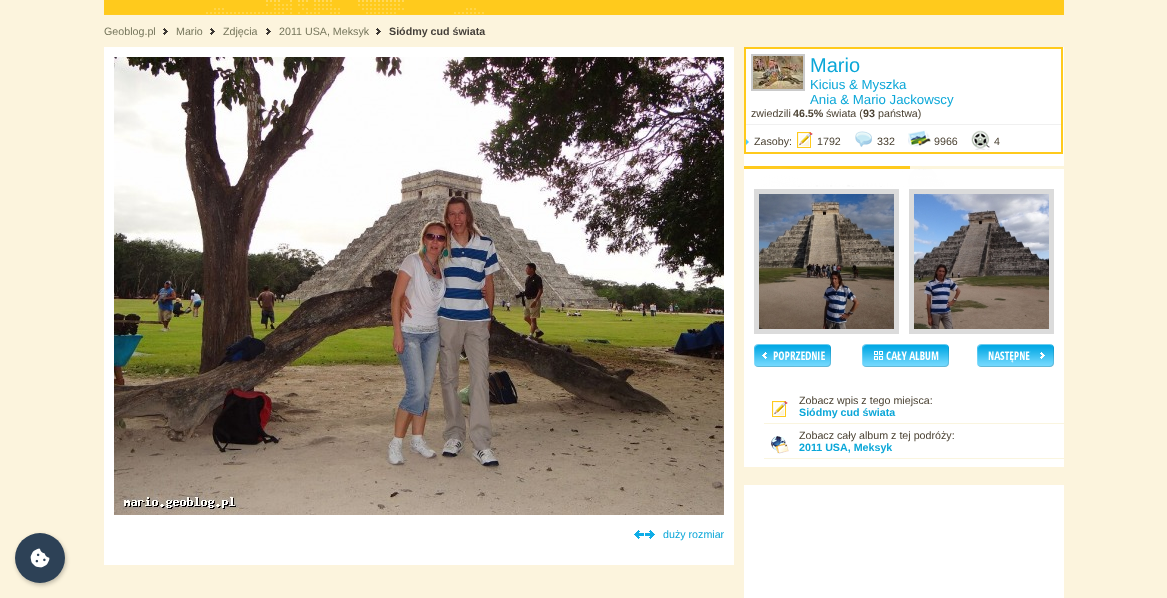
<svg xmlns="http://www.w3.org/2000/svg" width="1167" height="598">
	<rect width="100%" height="100%" fill="#FCF4DD" />
	<rect x="484" y="0" width="580" height="15" fill="#FFCA1C" />
	<image x="104" y="0" width="380" height="15" href="assets/img1.png" />
	<text x="104" y="35" font-family="Liberation Sans" font-size="10.7" fill="#76765C">Geoblog.pl</text>
	<image x="163" y="28" width="5" height="7" href="assets/img2.png" />
	<text x="176" y="35" font-family="Liberation Sans" font-size="10.7" fill="#76765C">Mario</text>
	<image x="210" y="28" width="5" height="7" href="assets/img2.png" />
	<text x="223" y="35" font-family="Liberation Sans" font-size="10.7" fill="#76765C">Zdjęcia</text>
	<image x="266" y="28" width="5" height="7" href="assets/img2.png" />
	<text x="279" y="35" font-family="Liberation Sans" font-size="10.7" fill="#76765C">2011 USA, Meksyk</text>
	<image x="376" y="28" width="5" height="7" href="assets/img2.png" />
	<text x="389" y="35" font-family="Liberation Sans" font-size="10.7" font-weight="700" fill="#443F39">Siódmy cud świata</text>
	<rect x="744" y="47" width="320" height="420" fill="#FFFFFF" />
	<rect x="745" y="48" width="317" height="105" fill="none" stroke="#FFCA1C" stroke-width="2" />
	<rect x="746" y="124" width="315" height="1" fill="#F0F0F0" />
	<rect x="752" y="55" width="52" height="35" fill="none" stroke="#CACACA" stroke-width="2" />
	<image x="753" y="56" width="50" height="33" href="assets/img3.png" />
	<text x="810" y="72" font-family="Liberation Sans" font-size="20" fill="#0BA7D8">Mario</text>
	<g font-family="Liberation Sans" font-size="13.25" fill="#0BA7D8">
		<text x="810" y="89">Kicius &amp; Myszka</text>
		<text x="810" y="104">Ania &amp; Mario Jackowscy</text>
	</g>
	<text x="751" y="117" font-family="Liberation Sans" font-size="10.7" fill="#4B4233">zwiedzili</text>
	<text x="793" y="117" font-family="Liberation Sans" font-size="10.7" font-weight="700" fill="#4B4233">46.5%</text>
	<text x="826" y="117" font-family="Liberation Sans" font-size="10.7" fill="#4B4233">świata (</text>
	<text x="863" y="117" font-family="Liberation Sans" font-size="10.7" font-weight="700" fill="#4B4233">93</text>
	<text x="878" y="117" font-family="Liberation Sans" font-size="10.7" fill="#4B4233">państwa)</text>
	<image x="746" y="139" width="3" height="6" href="assets/img4.png" />
	<text x="754" y="145" font-family="Liberation Sans" font-size="10.7" fill="#4B4233">Zasoby:</text>
	<image x="797" y="132" width="16" height="16" href="assets/img5.png" />
	<text x="817" y="145" font-family="Liberation Sans" font-size="10.7" fill="#4B4233">1792</text>
	<image x="855" y="131" width="17" height="16" href="assets/img6.png" />
	<text x="877" y="145" font-family="Liberation Sans" font-size="10.7" fill="#4B4233">332</text>
	<image x="908" y="130" width="23" height="17" href="assets/img7.png" />
	<text x="934" y="145" font-family="Liberation Sans" font-size="10.7" fill="#4B4233">9966</text>
	<image x="971" y="130" width="19" height="20" href="assets/img8.png" />
	<text x="994" y="145" font-family="Liberation Sans" font-size="10.7" fill="#4B4233">4</text>
	<image x="744" y="166" width="320" height="21" href="assets/img9.png" />
	<rect x="756.5" y="191.5" width="140" height="140" fill="none" stroke="#DBDBDB" stroke-width="5" />
	<image x="759" y="194" width="135" height="135" href="assets/img10.png" />
	<rect x="911.5" y="191.5" width="140" height="140" fill="none" stroke="#DBDBDB" stroke-width="5" />
	<image x="914" y="194" width="135" height="135" href="assets/img11.png" />
	<image x="754" y="344" width="77" height="23" href="assets/img12.png" />
	<image x="862" y="344" width="87" height="23" href="assets/img13.png" />
	<image x="977" y="344" width="77" height="23" href="assets/img14.png" />
	<rect x="764" y="423" width="300" height="1" fill="#FAF5DF" />
	<image x="772" y="401" width="16" height="16" href="assets/img5.png" />
	<text x="799" y="404" font-family="Liberation Sans" font-size="10.7" fill="#4B4233">Zobacz wpis z tego miejsca:</text>
	<text x="799" y="416" font-family="Liberation Sans" font-size="10.7" font-weight="700" fill="#0BA7D8">Siódmy cud świata</text>
	<rect x="764" y="458" width="300" height="1" fill="#FAF5DF" />
	<image x="771" y="436" width="18" height="18" href="assets/img15.png" />
	<text x="799" y="439" font-family="Liberation Sans" font-size="10.7" fill="#4B4233">Zobacz cały album z tej podróży:</text>
	<text x="799" y="451" font-family="Liberation Sans" font-size="10.7" font-weight="700" fill="#0BA7D8">2011 USA, Meksyk</text>
	<rect x="744" y="485" width="320" height="113" fill="#FFFFFF" />
	<rect x="104" y="47" width="630" height="518" fill="#FFFFFF" />
	<image x="114" y="57" width="610" height="458" href="assets/img16.png" />
	<image x="634" y="530" width="21" height="9" href="assets/img17.png" />
	<text x="663" y="538" font-family="Liberation Sans" font-size="10.7" fill="#0BA7D8">duży rozmiar</text>
	<rect x="16" y="535" width="50" height="50" rx="25" fill="#000000" fill-opacity="0.25" filter="blur(2px)" />
	<circle cx="40" cy="558" r="25" fill="#2D4156" />
	<image x="30" y="548" width="20" height="20" href="assets/img18.png" />
</svg>
